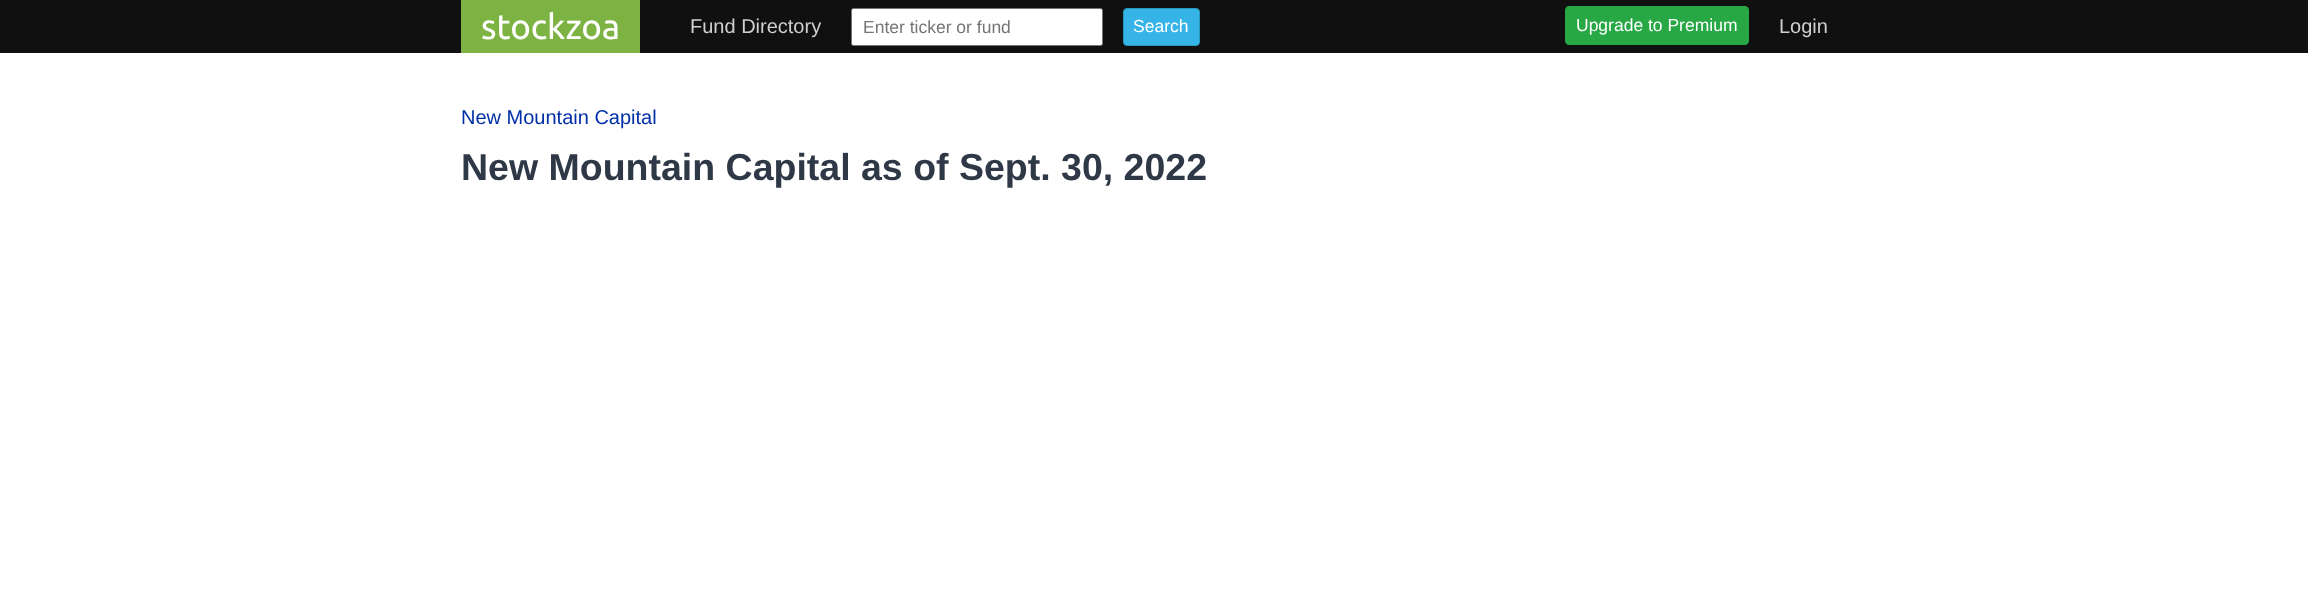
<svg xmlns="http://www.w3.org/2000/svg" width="2308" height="590">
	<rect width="100%" height="100%" fill="#FFFFFF" />
	<rect x="0" y="0" width="2308" height="53" fill="#101010" />
	<rect x="461" y="0" width="179" height="53" fill="#7CB342" />
	<text x="481" y="39" font-family="Ubuntu" font-size="35" fill="#FFFFFF">stockzoa</text>
	<text x="690" y="33" font-family="Liberation Sans" font-size="20" fill="#D0D0D0">Fund Directory</text>
	<rect x="851.5" y="8.5" width="251" height="37" rx="2" fill="#FFFFFF" stroke="#767676" />
	<text x="863" y="33" font-family="Liberation Sans" font-size="17.5" fill="#757575">Enter ticker or fund</text>
	<rect x="1123.5" y="8.5" width="76" height="37" rx="3.5" fill="#36B4E8" stroke="#269ABC" />
	<text x="1133" y="32" font-family="Liberation Sans" font-size="17.5" fill="#FFFFFF">Search</text>
	<rect x="1565.5" y="6.5" width="183" height="38" rx="3.5" fill="#28A745" stroke="#28A745" />
	<text x="1576" y="31" font-family="Liberation Sans" font-size="17.5" fill="#FFFFFF">Upgrade to Premium</text>
	<text x="1779" y="33" font-family="Liberation Sans" font-size="20" fill="#D0D0D0">Login</text>
	<text x="461" y="124" font-family="Liberation Sans" font-size="20" fill="#002FA7">New Mountain Capital</text>
	<text x="461" y="180" font-family="Liberation Sans" font-size="37.5" font-weight="700" fill="#2F3846">New Mountain Capital as of Sept. 30, 2022</text>
</svg>
